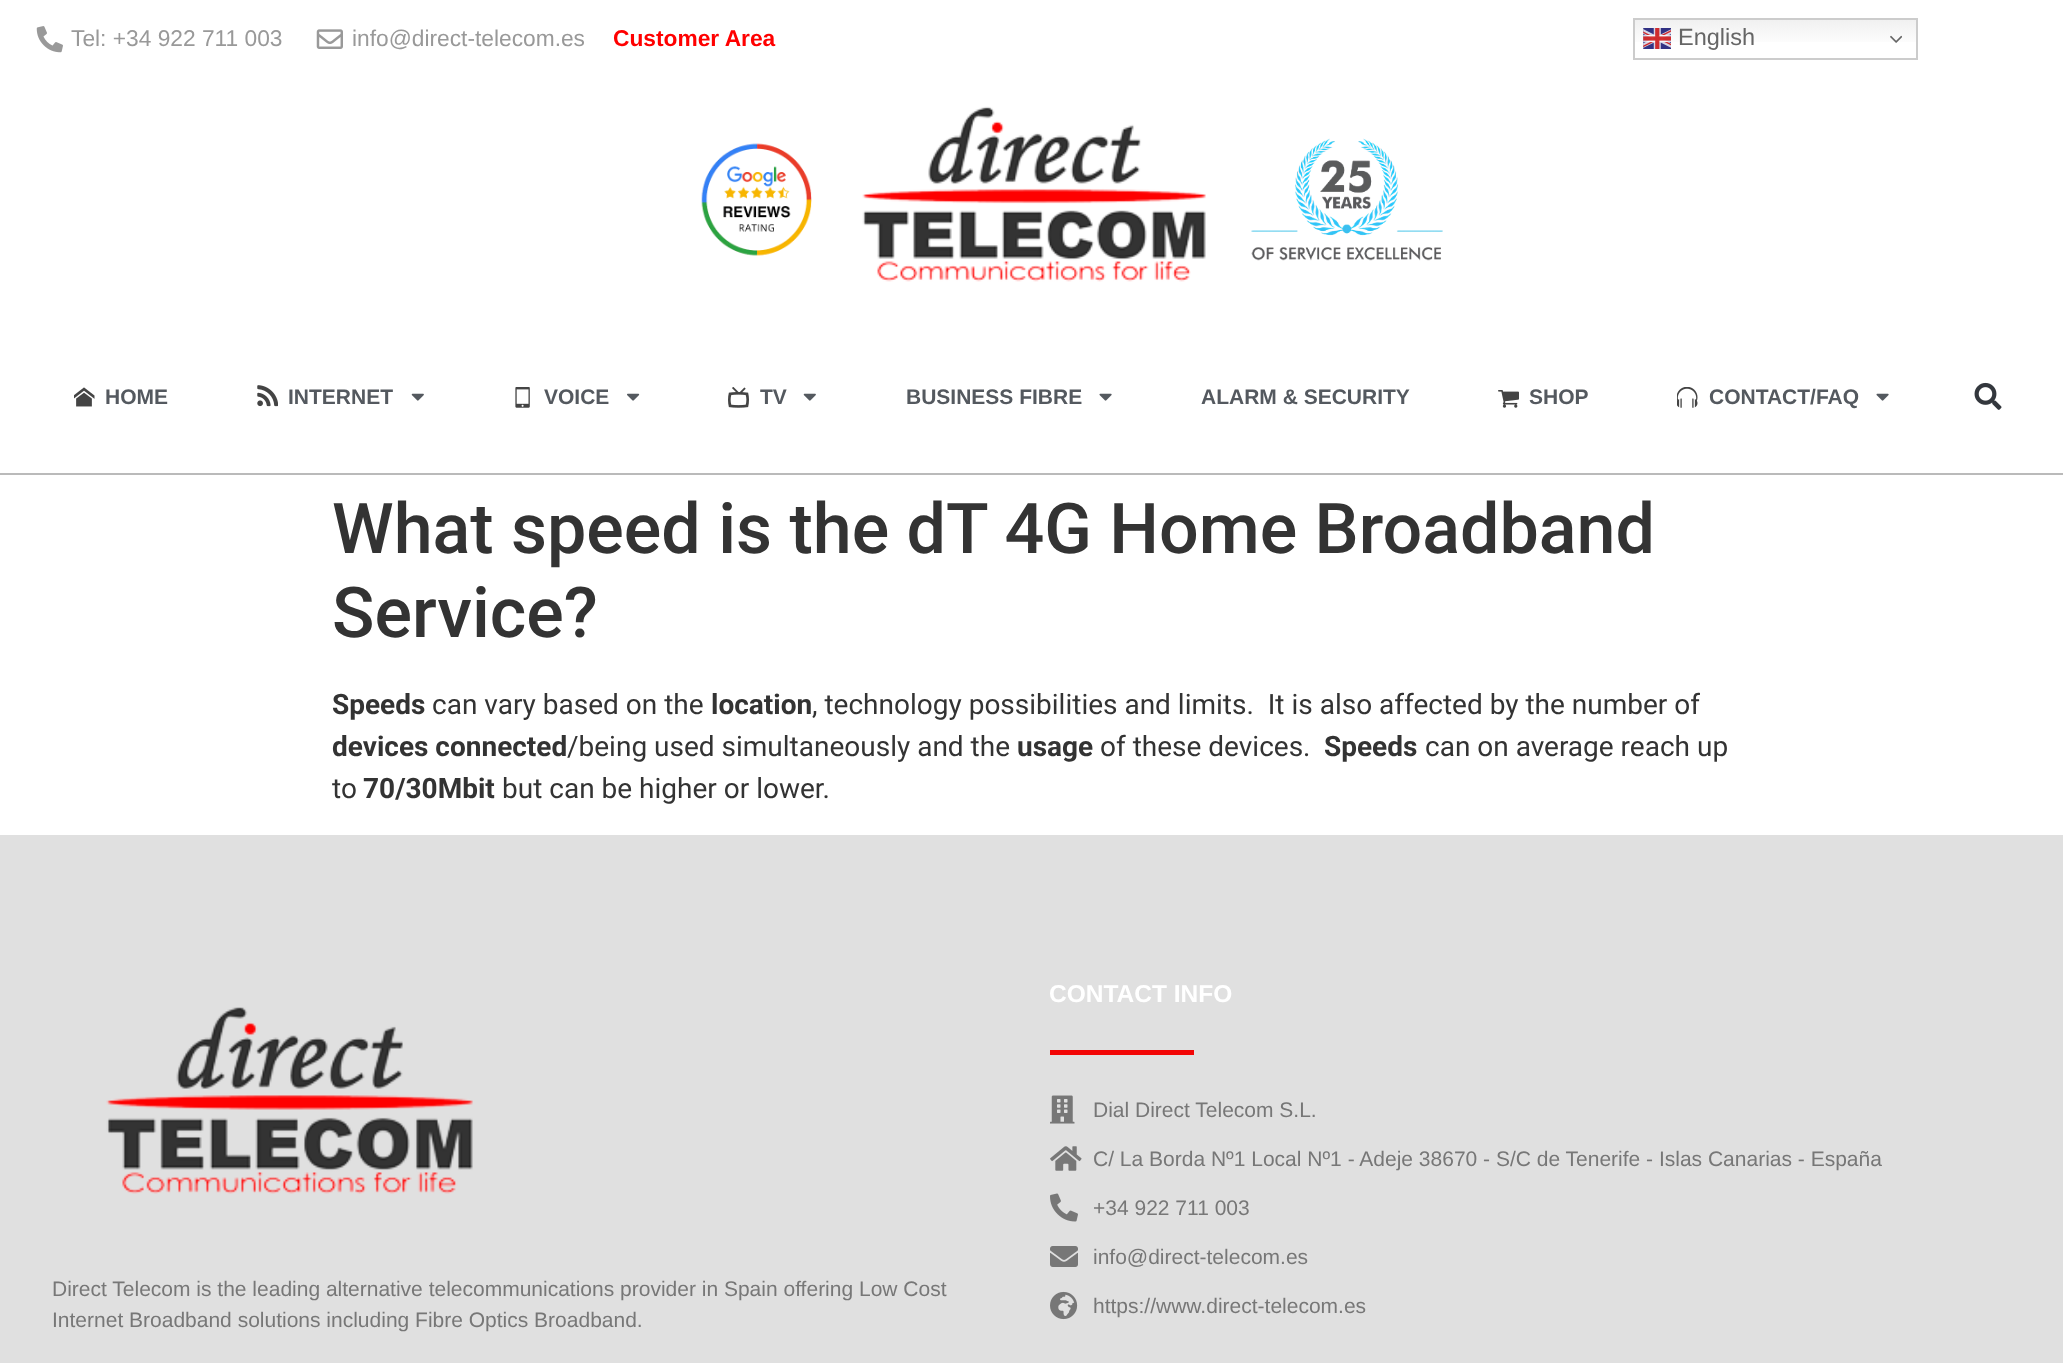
<svg xmlns="http://www.w3.org/2000/svg" width="2063" height="1363">
	<defs>
		<linearGradient id="g1" gradientUnits="userSpaceOnUse" x1="1775" y1="17" x2="1775" y2="60"><stop offset="0" stop-color="#EFEFEF" /><stop offset="0.7" stop-color="#FFFFFF" /></linearGradient>
	</defs>
	<rect width="100%" height="100%" fill="#FFFFFF" />
	<image x="36" y="26" width="27" height="27" href="assets/img1.png" />
	<text x="71" y="46" font-family="Liberation Sans" font-size="22.75" fill="#999999">Tel: +34 922 711 003</text>
	<image x="316" y="29" width="27" height="20" href="assets/img2.png" />
	<text x="352" y="46" font-family="Liberation Sans" font-size="22.75" fill="#999999">info@direct-telecom.es</text>
	<text x="613" y="46" font-family="Liberation Sans" font-size="22.75" font-weight="700" fill="#FF0000">Customer Area</text>
	<rect x="1635" y="20" width="281" height="22" fill="url(#g1)" />
	<rect x="1634" y="19" width="283" height="40" fill="none" stroke="#CCCCCC" stroke-width="2" />
	<image x="1643" y="28" width="28" height="21" href="assets/img3.png" />
	<text x="1678" y="45" font-family="Liberation Sans" font-size="23.5" fill="#666666">English</text>
	<image x="1890" y="35" width="12" height="8" href="assets/img4.png" />
	<image x="701" y="143" width="111" height="113" href="assets/img5.png" />
	<image x="862" y="106" width="344" height="176" href="assets/img6.png" />
	<image x="1251" y="138" width="192" height="123" href="assets/img7.png" />
	<rect x="0" y="473" width="2063" height="2" fill="#BABABA" />
	<image x="74" y="387" width="21" height="20" href="assets/img8.png" />
	<text x="105" y="404" font-family="Liberation Sans" font-size="21" font-weight="700" fill="#54595F">HOME</text>
	<image x="257" y="385" width="21" height="22" href="assets/img9.png" />
	<text x="288" y="404" font-family="Liberation Sans" font-size="21" font-weight="700" fill="#54595F">INTERNET</text>
	<image x="411" y="393" width="13" height="8" href="assets/img10.png" />
	<image x="515" y="387" width="15" height="21" href="assets/img11.png" />
	<text x="544" y="404" font-family="Liberation Sans" font-size="21" font-weight="700" fill="#54595F">VOICE</text>
	<image x="627" y="393" width="13" height="8" href="assets/img12.png" />
	<image x="728" y="387" width="21" height="21" href="assets/img13.png" />
	<text x="760" y="404" font-family="Liberation Sans" font-size="21" font-weight="700" fill="#54595F">TV</text>
	<image x="803" y="393" width="13" height="8" href="assets/img10.png" />
	<text x="906" y="404" font-family="Liberation Sans" font-size="21" font-weight="700" fill="#54595F">BUSINESS FIBRE</text>
	<image x="1099" y="393" width="13" height="8" href="assets/img14.png" />
	<text x="1201" y="404" font-family="Liberation Sans" font-size="21" font-weight="700" fill="#54595F">ALARM &amp; SECURITY</text>
	<image x="1498" y="390" width="21" height="18" href="assets/img15.png" />
	<text x="1529" y="404" font-family="Liberation Sans" font-size="21" font-weight="700" fill="#54595F">SHOP</text>
	<image x="1677" y="387" width="21" height="21" href="assets/img16.png" />
	<text x="1709" y="404" font-family="Liberation Sans" font-size="21" font-weight="700" fill="#54595F">CONTACT/FAQ</text>
	<image x="1876" y="393" width="13" height="8" href="assets/img14.png" />
	<image x="1974" y="382" width="28" height="28" href="assets/img17.png" />
	<g font-family="Roboto" font-size="70" font-weight="500" fill="#333333">
		<text x="332" y="553">What speed is the dT 4G Home Broadband</text>
		<text x="332" y="637">Service?</text>
	</g>
	<text x="332" y="714" font-family="Roboto" font-size="28" font-weight="700" fill="#333333">Speeds</text>
	<text x="432" y="714" font-family="Roboto" font-size="28" fill="#333333">can vary based on the</text>
	<text x="711" y="714" font-family="Roboto" font-size="28" font-weight="700" fill="#333333">location</text>
	<text x="812" y="714" font-family="Roboto" font-size="28" fill="#333333" xml:space="preserve">, technology possibilities and limits.  It is also affected by the number of</text>
	<text x="332" y="756" font-family="Roboto" font-size="28" font-weight="700" fill="#333333">devices connected</text>
	<text x="567" y="756" font-family="Roboto" font-size="28" fill="#333333">/being used simultaneously and the</text>
	<text x="1017" y="756" font-family="Roboto" font-size="28" font-weight="700" fill="#333333">usage</text>
	<text x="1100" y="756" font-family="Roboto" font-size="28" fill="#333333">of these devices.</text>
	<text x="1324" y="756" font-family="Roboto" font-size="28" font-weight="700" fill="#333333">Speeds</text>
	<g font-family="Roboto" font-size="28" fill="#333333">
		<text x="1425" y="756">can on average reach up</text>
		<text x="332" y="798">to</text>
	</g>
	<text x="363" y="798" font-family="Roboto" font-size="28" font-weight="700" fill="#333333">70/30Mbit</text>
	<text x="502" y="798" font-family="Roboto" font-size="28" fill="#333333">but can be higher or lower.</text>
	<rect x="0" y="835" width="2063" height="528" fill="#E0E0E0" />
	<image x="106" y="1007" width="367" height="187" href="assets/img18.png" />
	<g font-family="Liberation Sans" font-size="21" fill="#777777">
		<text x="52" y="1296">Direct Telecom is the leading alternative telecommunications provider in Spain offering Low Cost</text>
		<text x="52" y="1327">Internet Broadband solutions including Fibre Optics Broadband.</text>
	</g>
	<text x="1049" y="1002" font-family="Liberation Sans" font-size="24.5" font-weight="700" fill="#FFFFFF">CONTACT INFO</text>
	<rect x="1050" y="1050" width="144" height="5" fill="#F20606" />
	<image x="1050" y="1095" width="25" height="29" href="assets/img19.png" />
	<text x="1093" y="1117" font-family="Liberation Sans" font-size="21" fill="#777777">Dial Direct Telecom S.L.</text>
	<image x="1050" y="1146" width="32" height="25" href="assets/img20.png" />
	<text x="1093" y="1166" font-family="Liberation Sans" font-size="21" fill="#777777">C/ La Borda Nº1 Local Nº1 - Adeje 38670 - S/C de Tenerife - Islas Canarias - España</text>
	<image x="1050" y="1193" width="28" height="29" href="assets/img21.png" />
	<text x="1093" y="1215" font-family="Liberation Sans" font-size="21" fill="#777777">+34 922 711 003</text>
	<image x="1050" y="1246" width="28" height="21" href="assets/img22.png" />
	<text x="1093" y="1264" font-family="Liberation Sans" font-size="21" fill="#777777">info@direct-telecom.es</text>
	<image x="1050" y="1291" width="28" height="29" href="assets/img23.png" />
	<text x="1093" y="1313" font-family="Liberation Sans" font-size="21" fill="#777777">https://www.direct-telecom.es</text>
</svg>
